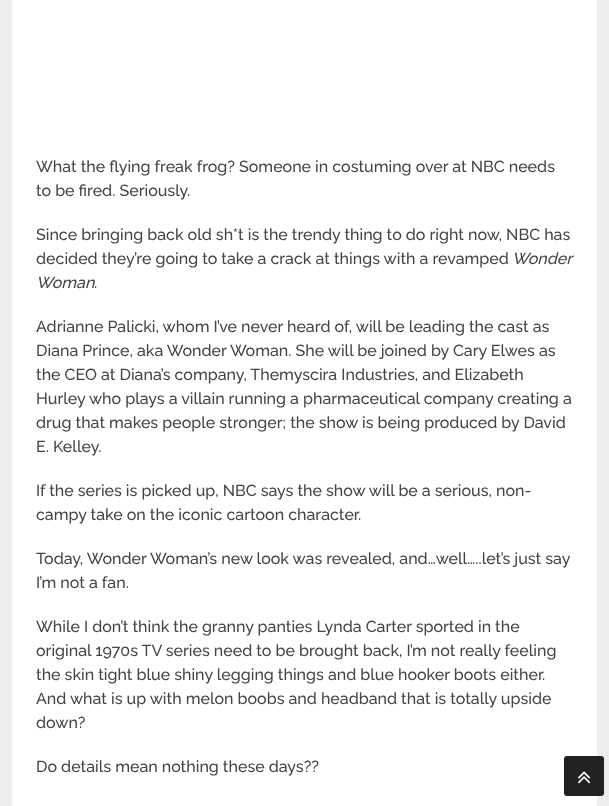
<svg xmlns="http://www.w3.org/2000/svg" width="609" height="806">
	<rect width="100%" height="100%" fill="#EEEEEE" />
	<rect x="12" y="0" width="585" height="806" fill="#FFFFFF" />
	<g font-family="Raleway" font-size="16" font-weight="100" fill="#444444">
		<text x="36" y="172">What the flying freak frog? Someone in costuming over at NBC needs</text>
		<text x="36" y="196">to be fired. Seriously.</text>
		<text x="36" y="240">Since bringing back old sh*t is the trendy thing to do right now, NBC has</text>
		<text x="36" y="264">decided they’re going to take a crack at things with a revamped</text>
	</g>
	<g font-family="Raleway" font-size="16" font-weight="100" font-style="italic" fill="#444444">
		<text x="512" y="264">Wonder</text>
		<text x="36" y="288">Woman</text>
	</g>
	<g font-family="Raleway" font-size="16" font-weight="100" fill="#444444">
		<text x="94" y="288">.</text>
		<text x="36" y="332">Adrianne Palicki, whom I’ve never heard of, will be leading the cast as</text>
		<text x="36" y="356">Diana Prince, aka Wonder Woman. She will be joined by Cary Elwes as</text>
		<text x="36" y="380">the CEO at Diana’s company, Themyscira Industries, and Elizabeth</text>
		<text x="36" y="404">Hurley who plays a villain running a pharmaceutical company creating a</text>
		<text x="36" y="428">drug that makes people stronger; the show is being produced by David</text>
		<text x="36" y="452">E. Kelley.</text>
		<text x="36" y="496">If the series is picked up, NBC says the show will be a serious, non-</text>
		<text x="36" y="520">campy take on the iconic cartoon character.</text>
		<text x="36" y="564">Today, Wonder Woman’s new look was revealed, and…well…..let’s just say</text>
		<text x="36" y="588">I’m not a fan.</text>
		<text x="36" y="632">While I don’t think the granny panties Lynda Carter sported in the</text>
		<text x="36" y="656">original 1970s TV series need to be brought back, I’m not really feeling</text>
		<text x="36" y="680">the skin tight blue shiny legging things and blue hooker boots either.</text>
		<text x="36" y="704">And what is up with melon boobs and headband that is totally upside</text>
		<text x="36" y="728">down?</text>
		<text x="36" y="772">Do details mean nothing these days??</text>
	</g>
	<rect x="564" y="756" width="40" height="40" rx="3" fill="#222222" />
	<image x="578" y="771" width="13" height="13" href="assets/img1.png" />
</svg>
